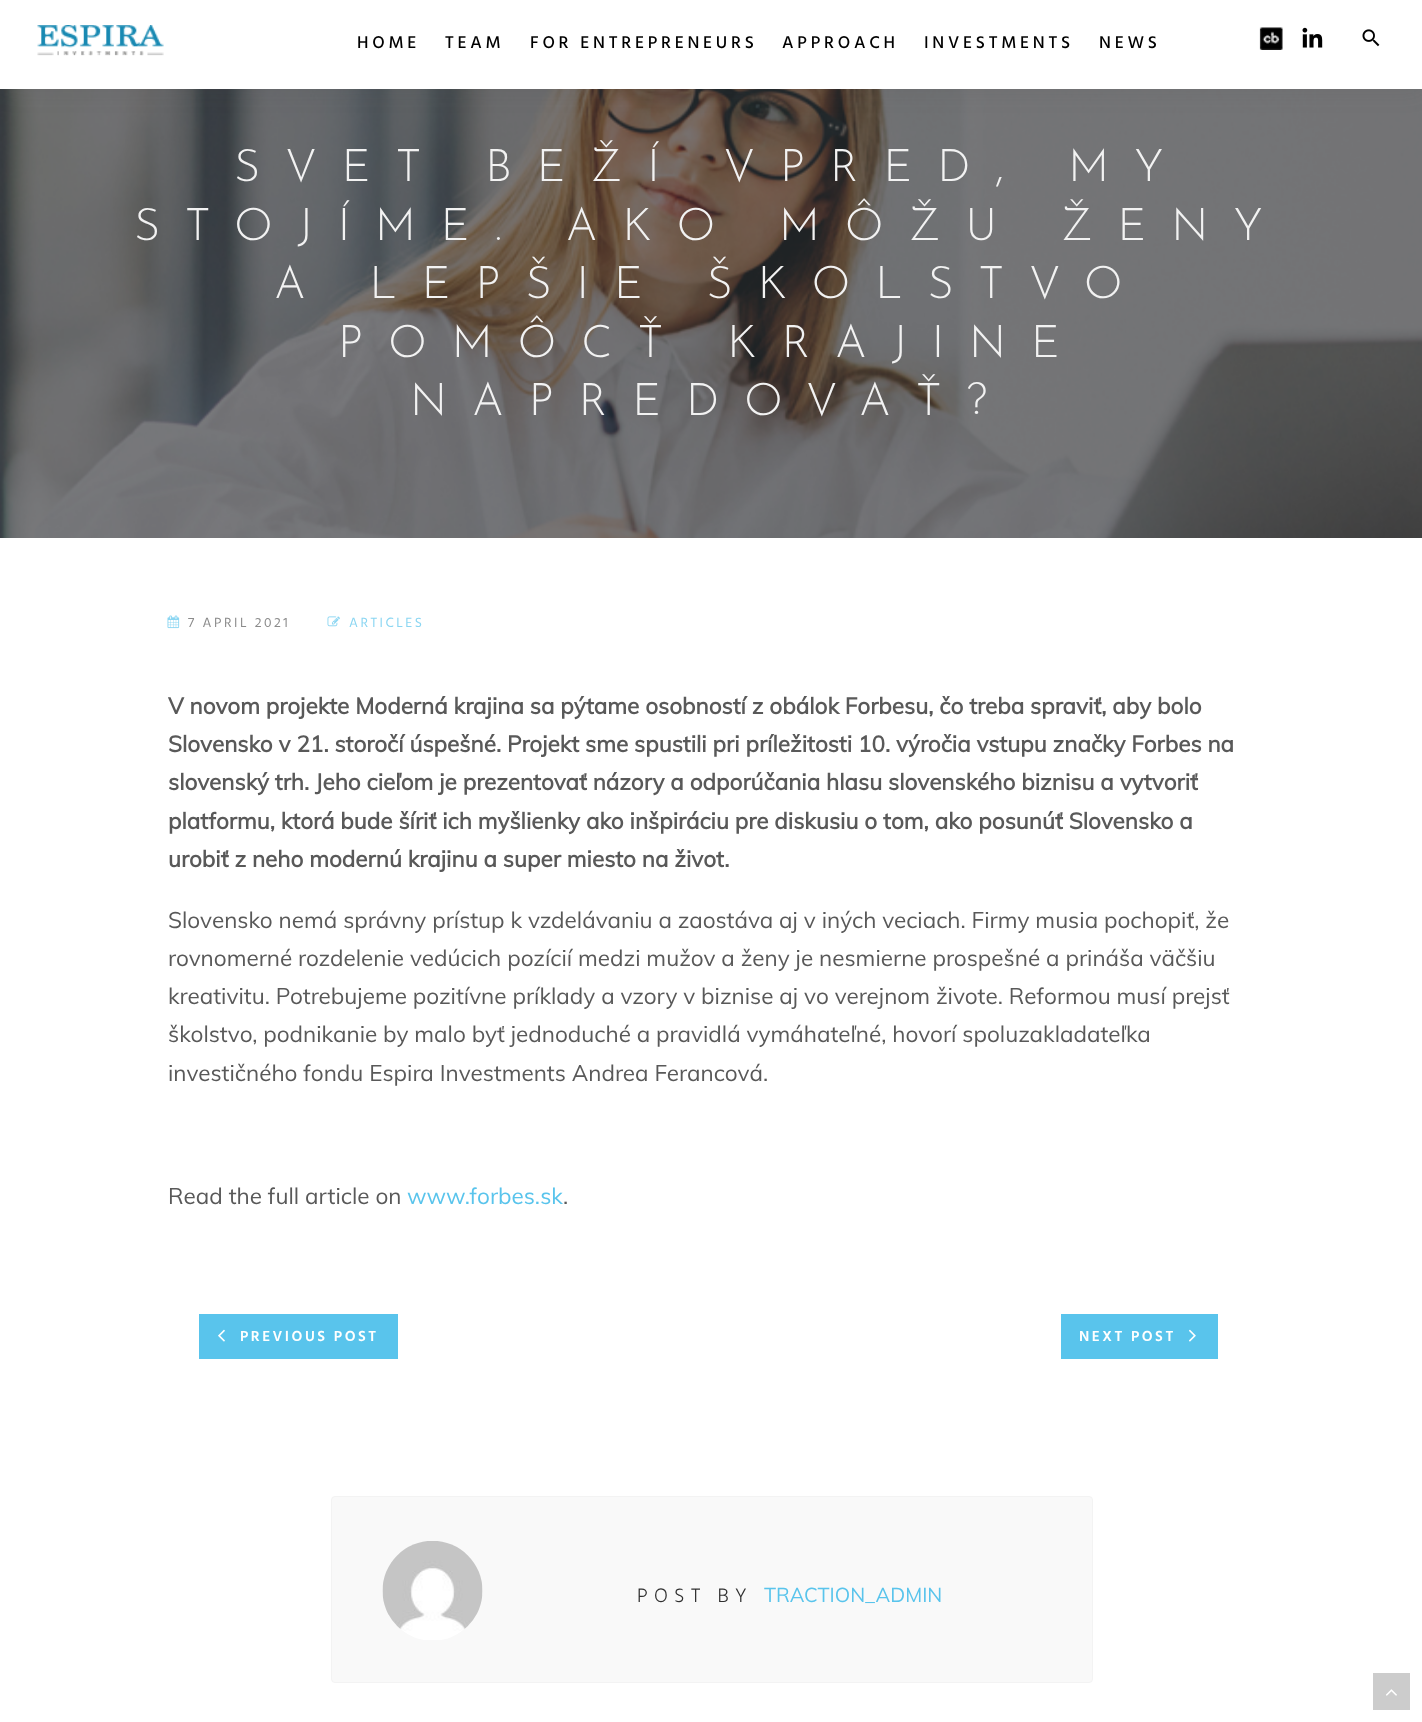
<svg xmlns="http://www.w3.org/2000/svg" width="1422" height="1722">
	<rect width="100%" height="100%" fill="#FFFFFF" />
	<image x="0" y="89" width="1422" height="449" href="assets/img5.png" />
	<rect x="0" y="1" width="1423" height="89" fill="#444444" fill-opacity="0.1" filter="blur(12.5px)" />
	<rect x="0" y="0" width="1422" height="89" fill="#FFFFFF" />
	<image x="37" y="25" width="127" height="31" href="assets/img1.png" />
	<g font-family="Hind" font-size="17.5" font-weight="500" letter-spacing="3.75" fill="#000000">
		<text x="357" y="48">HOME</text>
		<text x="445" y="48">TEAM</text>
		<text x="530" y="48">FOR ENTREPRENEURS</text>
		<text x="782" y="48">APPROACH</text>
		<text x="924" y="48">INVESTMENTS</text>
		<text x="1099" y="48">NEWS</text>
	</g>
	<image x="1259" y="27" width="24" height="23" href="assets/img2.png" />
	<image x="1302" y="27" width="21" height="21" href="assets/img3.png" />
	<image x="1362" y="29" width="18" height="18" href="assets/img4.png" />
	<g font-family="Josefin Sans" font-size="45" font-weight="100" letter-spacing="25" fill="#F2F2F2">
		<text x="234" y="181">SVET BEŽÍ VPRED, MY</text>
		<text x="134" y="240">STOJÍME. AKO MÔŽU ŽENY</text>
		<text x="274" y="298">A LEPŠIE ŠKOLSTVO</text>
		<text x="338" y="357">POMÔCŤ KRAJINE</text>
		<text x="410" y="415">NAPREDOVAŤ?</text>
	</g>
	<image x="167" y="615" width="13" height="14" href="assets/img6.png" />
	<text x="188" y="627" font-family="Hind" font-size="13.75" letter-spacing="2.5" fill="#8B8B8B">7 APRIL 2021</text>
	<image x="327" y="616" width="13" height="11" href="assets/img7.png" />
	<text x="349" y="627" font-family="Hind" font-size="13.75" letter-spacing="2.5" fill="#8BD6F2">ARTICLES</text>
	<g font-family="Muli" font-size="22.5" font-weight="700" fill="#595959">
		<text x="168" y="714">V novom projekte Moderná krajina sa pýtame osobností z obálok Forbesu, čo treba spraviť, aby bolo</text>
		<text x="168" y="752">Slovensko v 21. storočí úspešné. Projekt sme spustili pri príležitosti 10. výročia vstupu značky Forbes na</text>
		<text x="168" y="790">slovenský trh. Jeho cieľom je prezentovať názory a odporúčania hlasu slovenského biznisu a vytvoriť</text>
		<text x="168" y="829">platformu, ktorá bude šíriť ich myšlienky ako inšpiráciu pre diskusiu o tom, ako posunúť Slovensko a</text>
		<text x="168" y="867">urobiť z neho modernú krajinu a super miesto na život.</text>
	</g>
	<g font-family="Muli" font-size="22.5" fill="#595959">
		<text x="168" y="928">Slovensko nemá správny prístup k vzdelávaniu a zaostáva aj v iných veciach. Firmy musia pochopiť, že</text>
		<text x="168" y="966">rovnomerné rozdelenie vedúcich pozícií medzi mužov a ženy je nesmierne prospešné a prináša väčšiu</text>
		<text x="168" y="1004">kreativitu. Potrebujeme pozitívne príklady a vzory v biznise aj vo verejnom živote. Reformou musí prejsť</text>
		<text x="168" y="1042">školstvo, podnikanie by malo byť jednoduché a pravidlá vymáhateľné, hovorí spoluzakladateľka</text>
		<text x="168" y="1081">investičného fondu Espira Investments Andrea Ferancová.</text>
		<text x="168" y="1204">Read the full article on</text>
	</g>
	<text x="407" y="1204" font-family="Muli" font-size="22.5" fill="#59C4EC">www.forbes.sk</text>
	<text x="563" y="1204" font-family="Muli" font-size="22.5" fill="#595959">.</text>
	<rect x="199" y="1314" width="199" height="45" fill="#59C4EC" />
	<image x="218" y="1329" width="7" height="13" href="assets/img8.png" />
	<text x="240" y="1341" font-family="Hind" font-size="15" font-weight="600" letter-spacing="2.5" fill="#FFFFFF">PREVIOUS POST</text>
	<rect x="1061" y="1314" width="157" height="45" fill="#59C4EC" />
	<text x="1079" y="1341" font-family="Hind" font-size="15" font-weight="600" letter-spacing="2.5" fill="#FFFFFF">NEXT POST</text>
	<image x="1189" y="1329" width="7" height="13" href="assets/img9.png" />
	<rect x="331.5" y="1496.5" width="761" height="186" rx="3.5" fill="#F9F9F9" stroke="#F3F3F3" />
	<image x="382" y="1541" width="101" height="99" href="assets/img10.png" />
	<text x="637" y="1602" font-family="Hind" font-size="20" font-weight="300" letter-spacing="6.25" fill="#303030">POST BY</text>
	<text x="764" y="1602" font-family="Muli" font-size="20" fill="#59C4EC">TRACTION_ADMIN</text>
	<rect x="1373" y="1673" width="37" height="37" fill="#CCCCCC" />
	<image x="1386" y="1689" width="11" height="7" href="assets/img11.png" />
</svg>
